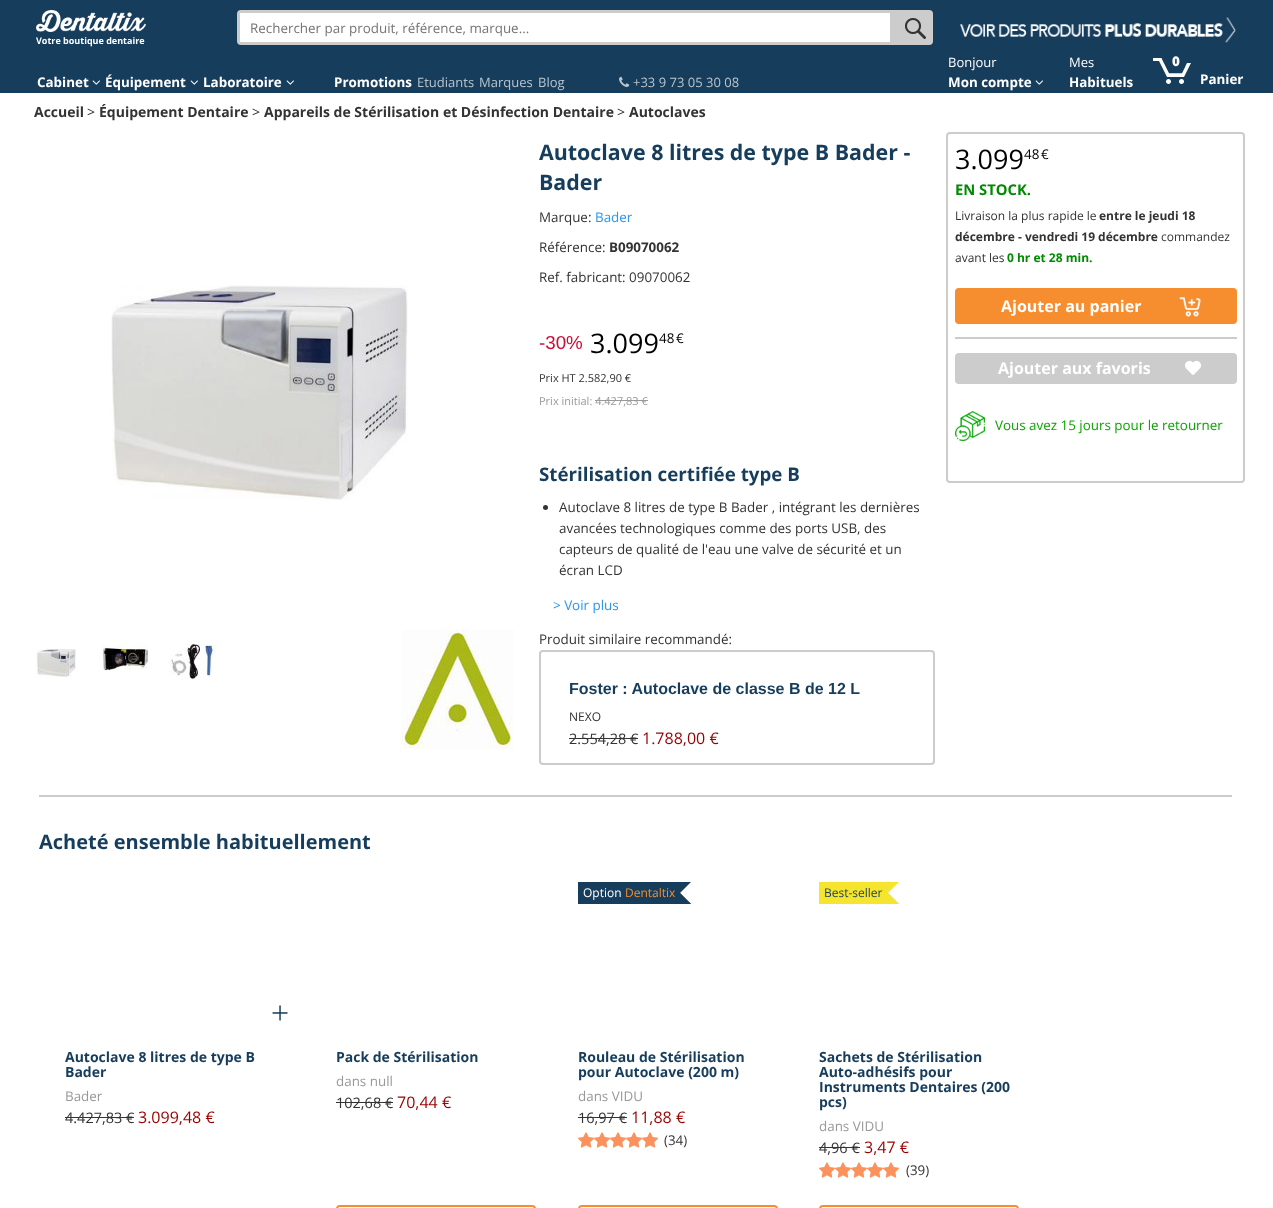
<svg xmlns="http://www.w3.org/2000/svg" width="1273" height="1208">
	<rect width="100%" height="100%" fill="#FFFFFF" />
	<rect x="0" y="0" width="1273" height="93" fill="#163D5C" />
	<rect x="237" y="10" width="696" height="35" rx="4" fill="#CCCCCC" />
	<rect x="240" y="13" width="650" height="29" fill="#FFFFFF" />
	<text x="250" y="33" font-family="Open Sans" font-size="13.4" fill="#757575">Rechercher par produit, référence, marque...</text>
	<image x="905" y="18" width="21" height="21" href="assets/img1.png" />
	<image x="959" y="17" width="277" height="26" href="assets/img2.png" />
	<image x="36" y="10" width="110" height="22" href="assets/img3.png" />
	<text x="36" y="44" font-family="Open Sans" font-size="9" font-weight="700" fill="#FFFFFF">Votre boutique dentaire</text>
	<text x="37" y="87" font-family="Open Sans" font-size="13.4" font-weight="700" fill="#FFFFFF">Cabinet</text>
	<image x="92" y="80" width="8" height="5" href="assets/img4.png" />
	<text x="105" y="87" font-family="Open Sans" font-size="13.4" font-weight="700" fill="#FFFFFF">Équipement</text>
	<image x="190" y="80" width="8" height="5" href="assets/img4.png" />
	<text x="203" y="87" font-family="Open Sans" font-size="13.4" font-weight="700" fill="#FFFFFF">Laboratoire</text>
	<image x="286" y="80" width="8" height="5" href="assets/img4.png" />
	<text x="334" y="87" font-family="Open Sans" font-size="13.4" font-weight="700" fill="#FFFFFF">Promotions</text>
	<g font-family="Open Sans" font-size="13" fill="#B9C5CE">
		<text x="417" y="87">Etudiants</text>
		<text x="479" y="87">Marques</text>
		<text x="538" y="87">Blog</text>
	</g>
	<image x="619" y="76" width="11" height="11" href="assets/img5.png" />
	<text x="633" y="87" font-family="Open Sans" font-size="13" fill="#B9C5CE">+33 9 73 05 30 08</text>
	<text x="948" y="67" font-family="Open Sans" font-size="13" fill="#FFFFFF">Bonjour</text>
	<text x="948" y="87" font-family="Open Sans" font-size="13.4" font-weight="700" fill="#FFFFFF">Mon compte</text>
	<image x="1035" y="80" width="8" height="5" href="assets/img4.png" />
	<text x="1069" y="67" font-family="Open Sans" font-size="13" fill="#FFFFFF">Mes</text>
	<text x="1069" y="87" font-family="Open Sans" font-size="13.4" font-weight="700" fill="#FFFFFF">Habituels</text>
	<image x="1153" y="58" width="38" height="26" href="assets/img6.png" />
	<text x="1172" y="66" font-family="Open Sans" font-size="13.4" font-weight="800" fill="#FFFFFF">0</text>
	<text x="1200" y="84" font-family="Open Sans" font-size="13.4" font-weight="700" fill="#FFFFFF">Panier</text>
	<text x="34" y="117" font-family="Open Sans" font-size="14" font-weight="700" fill="#333333">Accueil</text>
	<text x="87" y="117" font-family="Open Sans" font-size="14" fill="#333333">&gt;</text>
	<text x="99" y="117" font-family="Open Sans" font-size="14" font-weight="700" fill="#333333">Équipement Dentaire</text>
	<text x="252" y="117" font-family="Open Sans" font-size="14" fill="#333333">&gt;</text>
	<text x="264" y="117" font-family="Open Sans" font-size="14" font-weight="700" fill="#333333">Appareils de Stérilisation et Désinfection Dentaire</text>
	<text x="617" y="117" font-family="Open Sans" font-size="14" fill="#333333">&gt;</text>
	<text x="629" y="117" font-family="Open Sans" font-size="14" font-weight="700" fill="#333333">Autoclaves</text>
	<image x="111" y="285" width="297" height="215" href="assets/img7.png" />
	<image x="36" y="649" width="40" height="29" href="assets/img8.png" />
	<image x="102" y="639" width="47" height="32" href="assets/img9.png" />
	<image x="169" y="639" width="51" height="41" href="assets/img10.png" />
	<image x="399" y="629" width="115" height="120" href="assets/img11.png" />
	<g font-family="Open Sans" font-size="21.4" font-weight="700" fill="#163D5C">
		<text x="539" y="160">Autoclave 8 litres de type B Bader -</text>
		<text x="539" y="190">Bader</text>
	</g>
	<text x="539" y="222" font-family="Open Sans" font-size="13.4" fill="#333333">Marque:</text>
	<text x="595" y="222" font-family="Open Sans" font-size="13.4" fill="#2698F2">Bader</text>
	<text x="539" y="252" font-family="Open Sans" font-size="13.4" fill="#333333">Référence:</text>
	<text x="609" y="252" font-family="Open Sans" font-size="13.4" font-weight="700" fill="#333333">B09070062</text>
	<text x="539" y="282" font-family="Open Sans" font-size="13.4" fill="#333333">Ref. fabricant: 09070062</text>
	<text x="539" y="349" font-family="Liberation Sans" font-size="18.75" fill="#CC0C39">-30%</text>
	<text x="590" y="353" font-family="Open Sans" font-size="27" fill="#000000">3.099</text>
	<g font-family="Open Sans" font-size="13.4" fill="#000000">
		<text x="659" y="343">48</text>
		<text x="676" y="343">€</text>
	</g>
	<text x="539" y="382" font-family="Open Sans" font-size="11" fill="#333333">Prix HT 2.582,90 €</text>
	<text x="539" y="405" font-family="Open Sans" font-size="11" fill="#999999">Prix initial: 4.427,83 €</text>
	<rect x="595" y="400" width="53" height="1" fill="#999999" />
	<text x="539" y="481" font-family="Open Sans" font-size="18.75" font-weight="700" fill="#163D5C">Stérilisation certifiée type B</text>
	<circle cx="545.5" cy="507.5" r="2.5" fill="#333333" />
	<g font-family="Open Sans" font-size="13.4" fill="#333333">
		<text x="559" y="512">Autoclave 8 litres de type B Bader , intégrant les dernières</text>
		<text x="559" y="533">avancées technologiques comme des ports USB, des</text>
		<text x="559" y="554">capteurs de qualité de l'eau une valve de sécurité et un</text>
		<text x="559" y="575">écran LCD</text>
	</g>
	<text x="553" y="610" font-family="Open Sans" font-size="13.4" fill="#2698F2">&gt; Voir plus</text>
	<text x="539" y="644" font-family="Open Sans" font-size="13.4" fill="#333333">Produit similaire recommandé:</text>
	<rect x="540" y="651" width="394" height="113" rx="3" fill="none" stroke="#CCCCCC" stroke-width="2" />
	<rect x="555" y="707" width="1" height="1" fill="#F9F9F9" />
	<text x="569" y="694" font-family="Liberation Sans" font-size="16" font-weight="700" fill="#163D5C">Foster : Autoclave de classe B de 12 L</text>
	<text x="569" y="721" font-family="Open Sans" font-size="12" fill="#333333">NEXO</text>
	<text x="569" y="744" font-family="Open Sans" font-size="14.5" fill="#333333">2.554,28 €</text>
	<rect x="569" y="738" width="69" height="1" fill="#333333" />
	<text x="642" y="744" font-family="Open Sans" font-size="16" fill="#990000">1.788,00 €</text>
	<rect x="947" y="133" width="297" height="349" rx="3" fill="none" stroke="#CCCCCC" stroke-width="2" />
	<text x="955" y="169" font-family="Open Sans" font-size="27" fill="#000000">3.099</text>
	<g font-family="Open Sans" font-size="13.4" fill="#000000">
		<text x="1024" y="159">48</text>
		<text x="1041" y="159">€</text>
	</g>
	<text x="955" y="195" font-family="Open Sans" font-size="14.75" font-weight="700" fill="#008A00">EN STOCK.</text>
	<text x="955" y="220" font-family="Open Sans" font-size="12" fill="#333333">Livraison la plus rapide le</text>
	<g font-family="Open Sans" font-size="12" font-weight="700" fill="#333333">
		<text x="1099" y="220">entre le jeudi 18</text>
		<text x="955" y="241">décembre - vendredi 19 décembre</text>
	</g>
	<g font-family="Open Sans" font-size="12" fill="#333333">
		<text x="1161" y="241">commandez</text>
		<text x="955" y="262">avant les</text>
	</g>
	<text x="1007" y="262" font-family="Open Sans" font-size="12" font-weight="700" fill="#008A00">0 hr et 28 min.</text>
	<rect x="955" y="288" width="282" height="36" rx="4" fill="#F68D2E" />
	<text x="1001" y="312" font-family="Open Sans" font-size="16" font-weight="700" fill="#FFFFFF">Ajouter au panier</text>
	<image x="1179" y="297" width="22" height="20" href="assets/img12.png" />
	<rect x="955" y="337" width="282" height="2" fill="#CCCCCC" />
	<rect x="955" y="353" width="282" height="31" rx="4" fill="#CCCCCC" />
	<text x="998" y="374" font-family="Open Sans" font-size="16" font-weight="700" fill="#FFFFFF">Ajouter aux favoris</text>
	<image x="1185" y="360" width="16" height="15" href="assets/img13.png" />
	<image x="955" y="411" width="30" height="30" href="assets/img14.png" />
	<text x="995" y="430" font-family="Open Sans" font-size="13.4" fill="#0BA500">Vous avez 15 jours pour le retourner</text>
	<rect x="39" y="795" width="1193" height="2" fill="#CCCCCC" />
	<text x="39" y="849" font-family="Open Sans" font-size="20" font-weight="700" fill="#163D5C">Acheté ensemble habituellement</text>
	<image x="272" y="1005" width="16" height="16" href="assets/img15.png" />
	<rect x="578" y="882" width="113" height="22" fill="#163D5C" />
	<path d="M691 882V904L680 893Z" fill="#FFFFFF" />
	<path d="M691 904H578V893H680Z" fill="#163D5C" />
	<text x="583" y="897" font-family="Open Sans" font-size="12" fill="#FFFFFF">Option</text>
	<text x="625" y="897" font-family="Open Sans" font-size="12" fill="#F68D2E">Dentaltix</text>
	<g font-family="Open Sans" font-size="14" font-weight="700" fill="#163D5C">
		<text x="578" y="1062">Rouleau de Stérilisation</text>
		<text x="578" y="1077">pour Autoclave (200 m)</text>
	</g>
	<text x="578" y="1101" font-family="Open Sans" font-size="13.4" fill="#999999">dans VIDU</text>
	<text x="578" y="1123" font-family="Open Sans" font-size="14.5" fill="#333333">16,97 €</text>
	<rect x="578" y="1117" width="49" height="1" fill="#333333" />
	<text x="631" y="1123" font-family="Open Sans" font-size="16" fill="#990000">11,88 €</text>
	<image x="578" y="1132" width="16" height="16" href="assets/img16.png" />
	<image x="594" y="1132" width="16" height="16" href="assets/img16.png" />
	<image x="610" y="1132" width="16" height="16" href="assets/img16.png" />
	<image x="626" y="1132" width="16" height="16" href="assets/img16.png" />
	<image x="642" y="1132" width="16" height="16" href="assets/img16.png" />
	<text x="664" y="1145" font-family="Open Sans" font-size="13.4" fill="#333333">(34)</text>
	<rect x="579" y="1206" width="198" height="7" rx="3" fill="none" stroke="#F68D2E" stroke-width="2" />
	<rect x="819" y="882" width="80" height="22" fill="#F6E52E" />
	<path d="M899 882V904L888 893Z" fill="#FFFFFF" />
	<path d="M899 904H819V893H888Z" fill="#F6E52E" />
	<text x="824" y="897" font-family="Open Sans" font-size="12" fill="#163D5C">Best-seller</text>
	<g font-family="Open Sans" font-size="14" font-weight="700" fill="#163D5C">
		<text x="819" y="1062">Sachets de Stérilisation</text>
		<text x="819" y="1077">Auto-adhésifs pour</text>
		<text x="819" y="1092">Instruments Dentaires (200</text>
		<text x="819" y="1107">pcs)</text>
	</g>
	<text x="819" y="1131" font-family="Open Sans" font-size="13.4" fill="#999999">dans VIDU</text>
	<text x="819" y="1153" font-family="Open Sans" font-size="14.5" fill="#333333">4,96 €</text>
	<rect x="819" y="1147" width="41" height="1" fill="#333333" />
	<text x="864" y="1153" font-family="Open Sans" font-size="16" fill="#990000">3,47 €</text>
	<image x="819" y="1162" width="16" height="16" href="assets/img16.png" />
	<image x="835" y="1162" width="16" height="16" href="assets/img16.png" />
	<image x="851" y="1162" width="16" height="16" href="assets/img16.png" />
	<image x="867" y="1162" width="16" height="16" href="assets/img16.png" />
	<image x="883" y="1162" width="16" height="16" href="assets/img16.png" />
	<text x="906" y="1175" font-family="Open Sans" font-size="13.4" fill="#333333">(39)</text>
	<rect x="820" y="1206" width="198" height="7" rx="3" fill="none" stroke="#F68D2E" stroke-width="2" />
	<g font-family="Open Sans" font-size="14" font-weight="700" fill="#163D5C">
		<text x="65" y="1062">Autoclave 8 litres de type B</text>
		<text x="65" y="1077">Bader</text>
	</g>
	<text x="65" y="1101" font-family="Open Sans" font-size="13.4" fill="#999999">Bader</text>
	<text x="65" y="1123" font-family="Open Sans" font-size="14.5" fill="#333333">4.427,83 €</text>
	<rect x="65" y="1117" width="69" height="1" fill="#333333" />
	<text x="138" y="1123" font-family="Open Sans" font-size="16" fill="#990000">3.099,48 €</text>
	<text x="336" y="1062" font-family="Open Sans" font-size="14" font-weight="700" fill="#163D5C">Pack de Stérilisation</text>
	<text x="336" y="1086" font-family="Open Sans" font-size="13.4" fill="#999999">dans null</text>
	<text x="336" y="1108" font-family="Open Sans" font-size="14.5" fill="#333333">102,68 €</text>
	<rect x="336" y="1102" width="57" height="1" fill="#333333" />
	<text x="397" y="1108" font-family="Open Sans" font-size="16" fill="#990000">70,44 €</text>
	<rect x="337" y="1206" width="198" height="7" rx="3" fill="none" stroke="#F68D2E" stroke-width="2" />
</svg>
